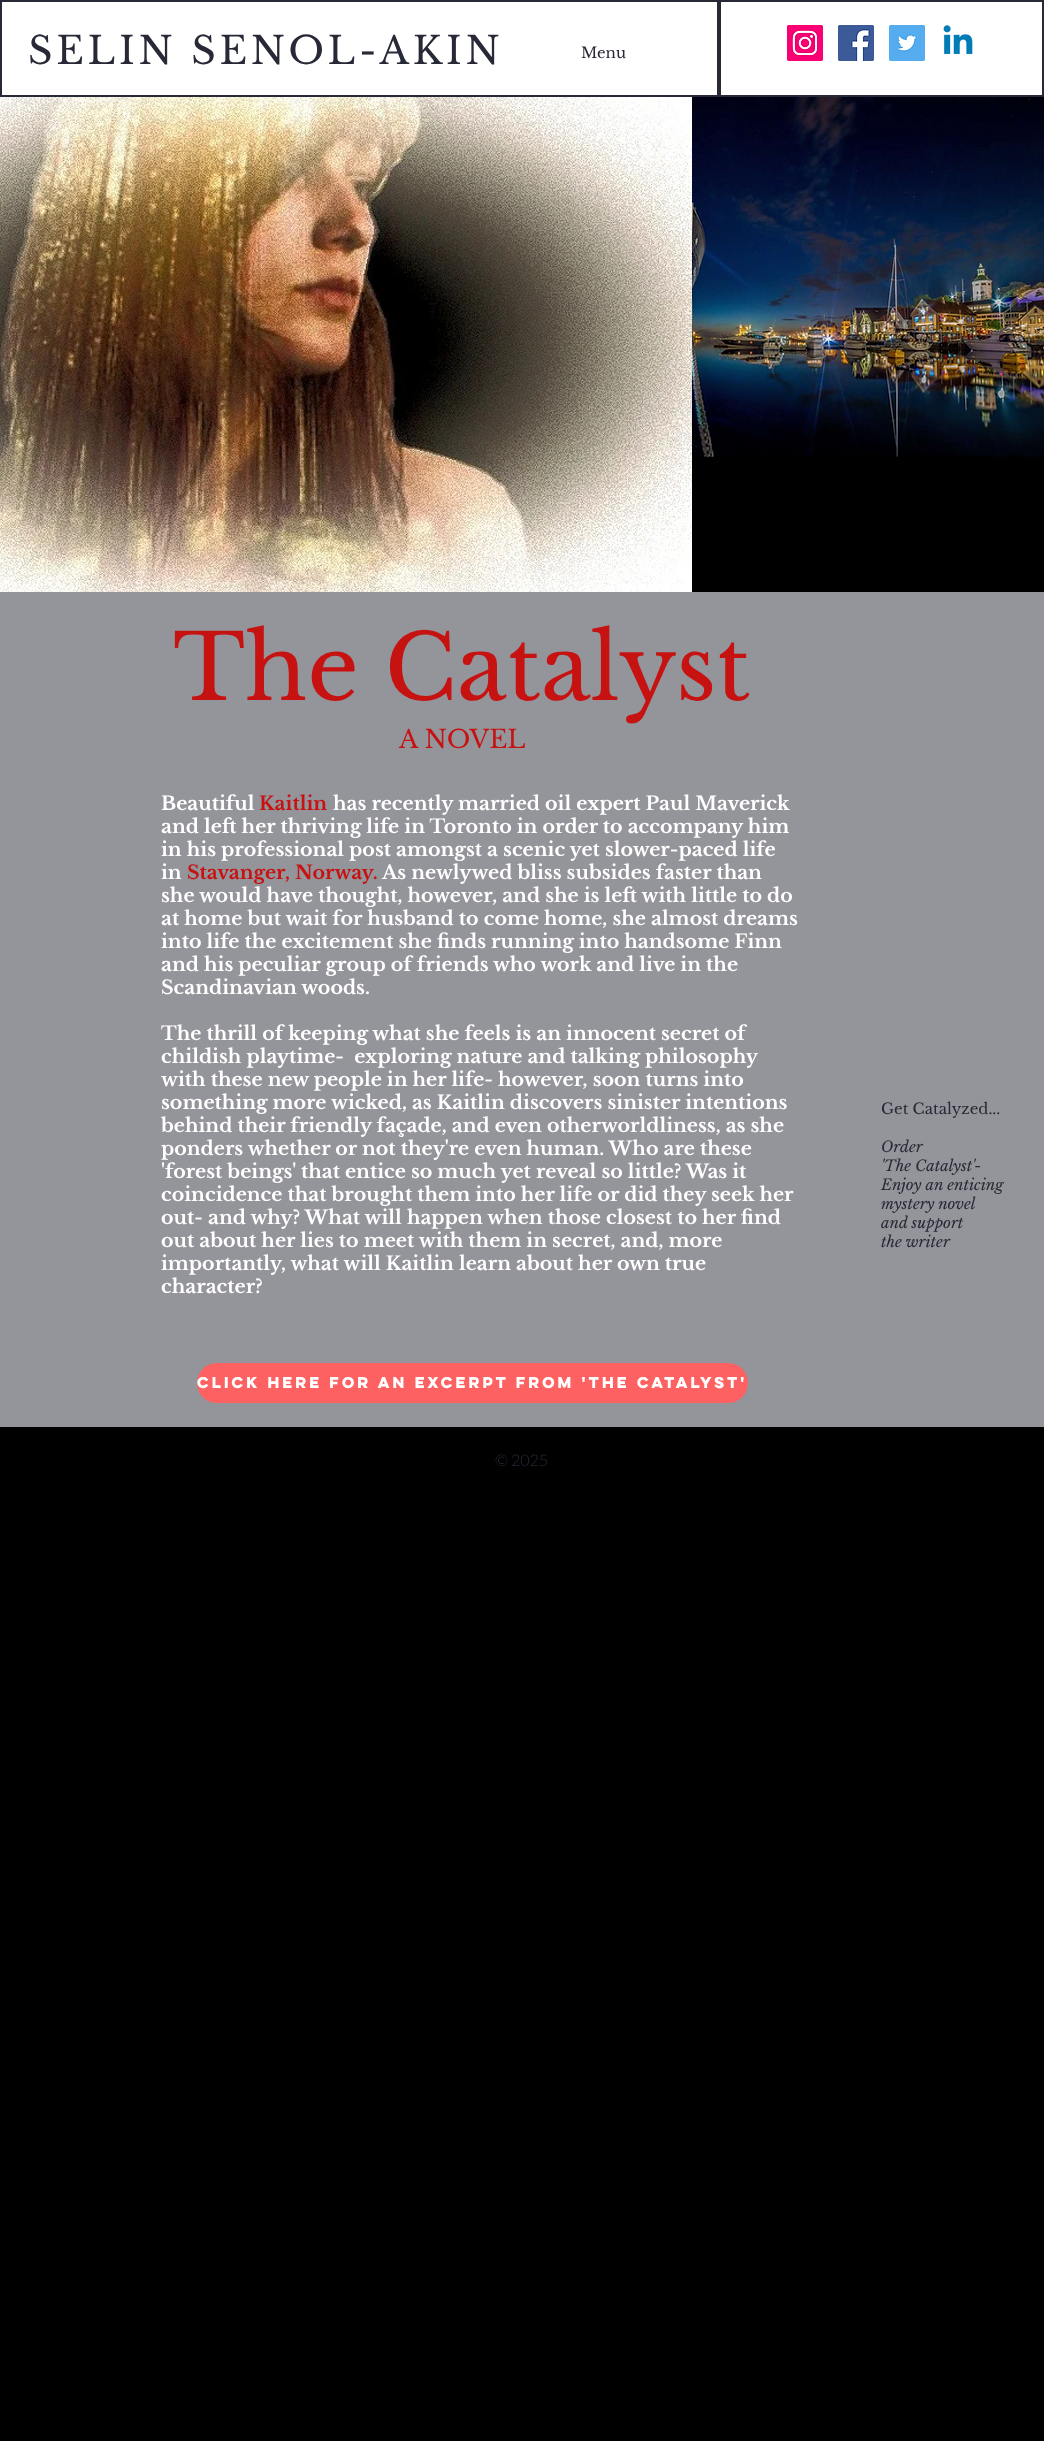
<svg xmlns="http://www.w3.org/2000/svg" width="1044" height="2441">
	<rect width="100%" height="100%" fill="#000000" />
	<rect x="0" y="0" width="1044" height="97" fill="#282936" />
	<rect x="2" y="2" width="715" height="93" fill="#FFFFFF" />
	<text x="28" y="64" font-family="Libre Baskerville" font-size="38" letter-spacing="3.75" fill="#282936">SELIN SENOL-AKIN</text>
	<text x="581" y="58" font-family="Libre Baskerville" font-size="15" fill="#282936">Menu</text>
	<rect x="721" y="2" width="321" height="93" fill="#FFFFFF" />
	<image x="787" y="25" width="36" height="36" href="assets/img1.png" />
	<image x="838" y="25" width="36" height="36" href="assets/img2.png" />
	<image x="889" y="25" width="36" height="36" href="assets/img3.png" />
	<image x="943" y="25" width="30" height="30" href="assets/img4.png" />
	<image x="0" y="97" width="692" height="495" href="assets/img5.png" />
	<image x="692" y="97" width="352" height="360" href="assets/img6.png" />
	<rect x="0" y="592" width="1044" height="835" fill="#94949B" />
	<text x="173" y="700" font-family="Libre Baskerville" font-size="90" fill="#C71212">The Catalyst</text>
	<text x="399" y="748" font-family="Libre Baskerville" font-size="25" fill="#C71212">A NOVEL</text>
	<text x="161" y="810" font-family="Libre Baskerville" font-size="19" font-weight="700" fill="#FFFFFF">Beautiful</text>
	<text x="259" y="810" font-family="Libre Baskerville" font-size="19" font-weight="700" fill="#C71212">Kaitlin</text>
	<g font-family="Libre Baskerville" font-size="19" font-weight="700" fill="#FFFFFF">
		<text x="333" y="810">has recently married oil expert Paul Maverick</text>
		<text x="161" y="833">and left her thriving life in Toronto in order to accompany him</text>
		<text x="161" y="856">in his professional post amongst a scenic yet slower-paced life</text>
		<text x="161" y="879">in</text>
	</g>
	<text x="187" y="879" font-family="Libre Baskerville" font-size="19" font-weight="700" fill="#C71212">Stavanger, Norway.</text>
	<g font-family="Libre Baskerville" font-size="19" font-weight="700" fill="#FFFFFF">
		<text x="382" y="879">As newlywed bliss subsides faster than</text>
		<text x="161" y="902">she would have thought, however, and she is left with little to do</text>
		<text x="161" y="925">at home but wait for husband to come home, she almost dreams</text>
		<text x="161" y="948">into life the excitement she finds running into handsome Finn</text>
		<text x="161" y="971">and his peculiar group of friends who work and live in the</text>
		<text x="161" y="994">Scandinavian woods.</text>
		<text x="161" y="1040">The thrill of keeping what she feels is an innocent secret of</text>
		<text x="161" y="1063" xml:space="preserve">childish playtime-  exploring nature and talking philosophy</text>
		<text x="161" y="1086">with these new people in her life- however, soon turns into</text>
		<text x="161" y="1109">something more wicked, as Kaitlin discovers sinister intentions</text>
		<text x="161" y="1132">behind their friendly façade, and even otherworldliness, as she</text>
		<text x="161" y="1155">ponders whether or not they're even human. Who are these</text>
		<text x="161" y="1178">'forest beings' that entice so much yet reveal so little? Was it</text>
		<text x="161" y="1201">coincidence that brought them into her life or did they seek her</text>
		<text x="161" y="1224">out- and why? What will happen when those closest to her find</text>
		<text x="161" y="1247">out about her lies to meet with them in secret, and, more</text>
		<text x="161" y="1270">importantly, what will Kaitlin learn about her own true</text>
		<text x="161" y="1293">character?</text>
	</g>
	<text x="881" y="1114" font-family="Libre Baskerville" font-size="15" fill="#282936">Get Catalyzed...</text>
	<g font-family="Libre Baskerville" font-size="15" font-style="italic" fill="#282936">
		<text x="881" y="1152">Order</text>
		<text x="881" y="1171">'The Catalyst'-</text>
		<text x="881" y="1190">Enjoy an enticing</text>
		<text x="881" y="1209">mystery novel</text>
		<text x="881" y="1228">and support</text>
		<text x="881" y="1247">the writer</text>
	</g>
	<rect x="197" y="1363" width="551" height="40" rx="20" fill="#FE6161" />
	<text x="197" y="1388" font-family="'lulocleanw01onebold'" font-size="14" font-weight="700" fill="#FFFFFF">Click here for an excerpt from 'The Catalyst'</text>
	<text x="495" y="1466" font-family="Lato" font-size="16" font-weight="300" fill="#282936">© 2025</text>
</svg>
